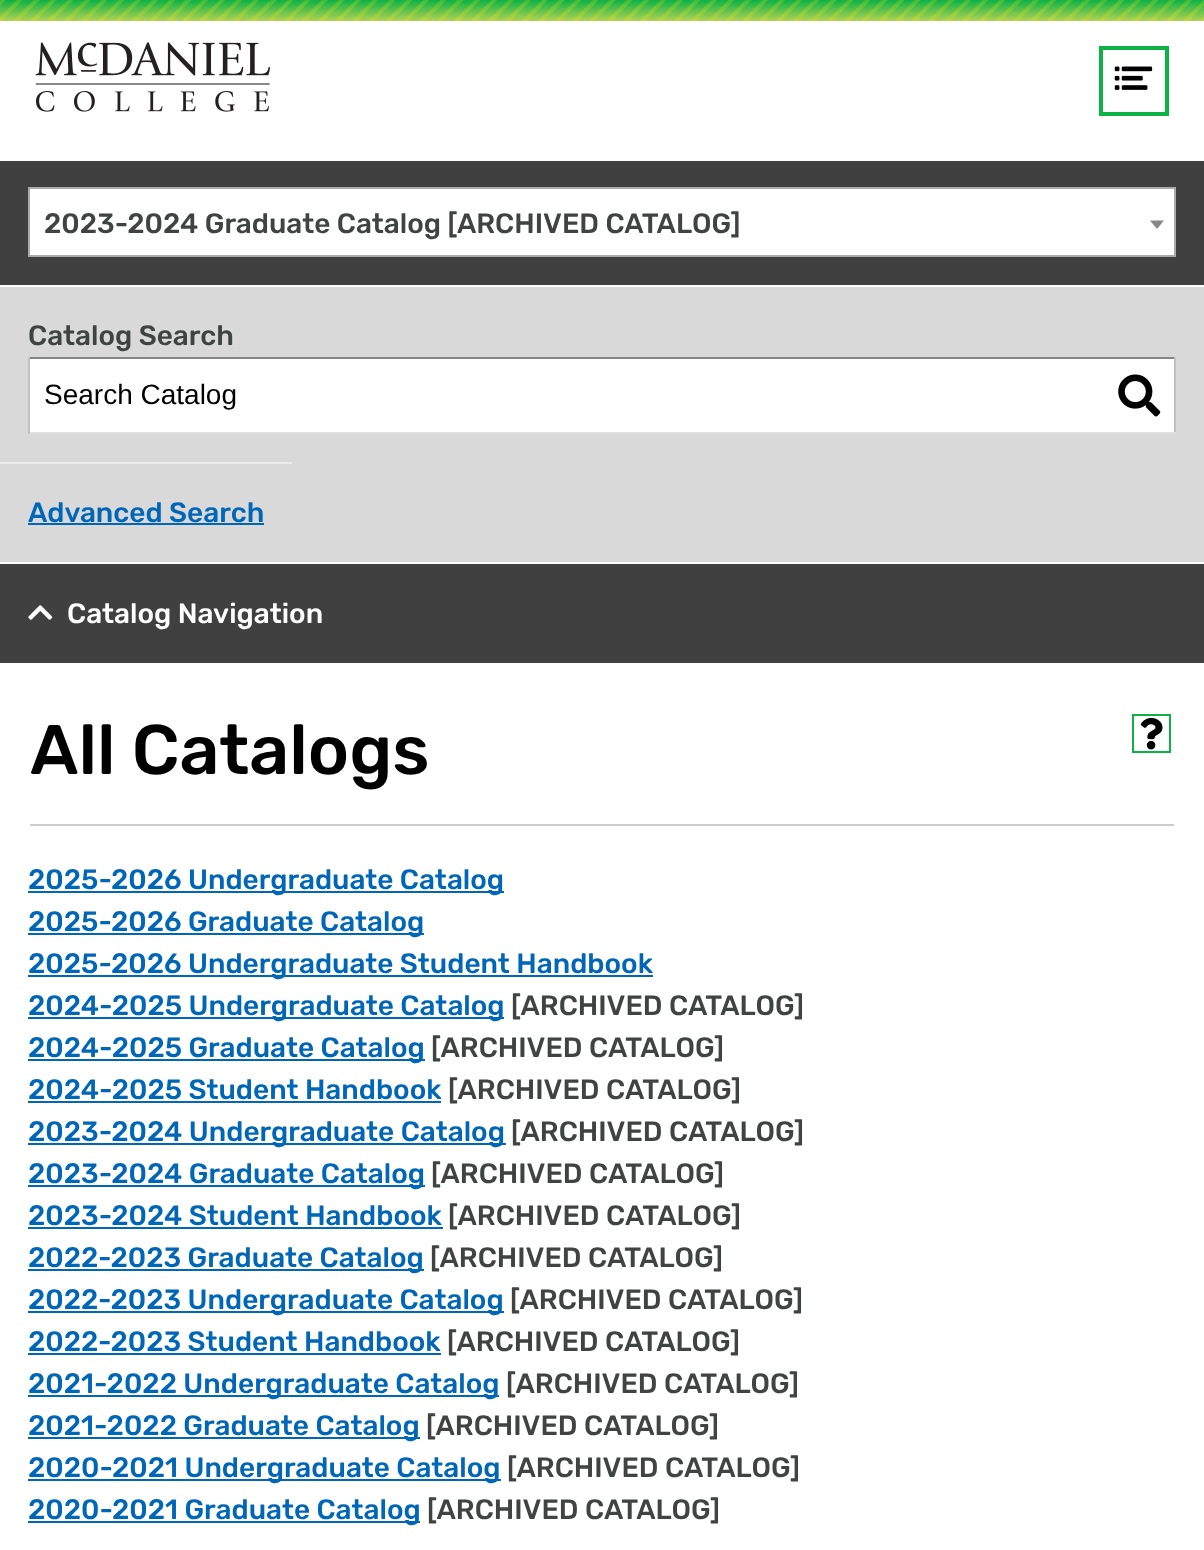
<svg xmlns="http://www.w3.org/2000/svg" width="1204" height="1550">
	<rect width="100%" height="100%" fill="#FFFFFF" />
	<image x="0" y="0" width="1204" height="21" href="assets/img1.png" />
	<image x="35" y="42" width="235" height="70" href="assets/img2.png" />
	<rect x="1101" y="48" width="66" height="66" fill="none" stroke="#0DB146" stroke-width="4" />
	<image x="1114" y="66" width="39" height="24" href="assets/img3.png" />
	<rect x="0" y="161" width="1204" height="124" fill="#404040" />
	<rect x="29" y="188" width="1146" height="68" fill="#FFFFFF" stroke="#AAAAAA" stroke-width="2" />
	<text x="44" y="233" font-family="Rubik" font-size="28" font-weight="500" fill="#3F4443">2023-2024 Graduate Catalog [ARCHIVED CATALOG]</text>
	<path d="M1150 220.5H1164L1157 229Z" fill="#888888" />
	<rect x="0" y="287" width="1204" height="275" fill="#D9D9D9" />
	<text x="28" y="345" font-family="Rubik" font-size="28" font-weight="500" fill="#3F4443">Catalog Search</text>
	<rect x="30" y="359" width="1144" height="73" fill="#FFFFFF" />
	<rect x="28" y="357" width="1148" height="2" fill="#848484" />
	<rect x="1174" y="357" width="2" height="77" fill="#C1C1C1" />
	<rect x="28" y="432" width="1148" height="2" fill="#E1E1E1" />
	<rect x="28" y="357" width="2" height="77" fill="#C1C1C1" />
	<text x="44" y="404" font-family="Liberation Sans" font-size="28" fill="#000000">Search Catalog</text>
	<image x="1118" y="374" width="43" height="43" href="assets/img4.png" />
	<rect x="0" y="462" width="292" height="2" fill="#ECECEC" />
	<text x="28" y="522" font-family="Rubik" font-size="28" font-weight="500" fill="#0066B8">Advanced Search</text>
	<rect x="28" y="523" width="236" height="2" fill="#0066B8" />
	<rect x="0" y="564" width="1204" height="99" fill="#404040" />
	<image x="28" y="605" width="25" height="15" href="assets/img5.png" />
	<text x="67" y="623" font-family="Rubik" font-size="28" font-weight="500" fill="#FFFFFF">Catalog Navigation</text>
	<text x="30" y="774" font-family="Rubik" font-size="70" font-weight="500" fill="#000000">All Catalogs</text>
	<rect x="1133" y="715" width="37" height="37" fill="none" stroke="#0DB146" stroke-width="2" />
	<image x="1140" y="717" width="23" height="33" href="assets/img6.png" />
	<rect x="30" y="824" width="1144" height="2" fill="#CCCCCC" />
	<rect x="28" y="891" width="476" height="2" fill="#0066B8" />
	<text x="28" y="889" font-family="Rubik" font-size="28" font-weight="500" fill="#0066B8">2025-2026 Undergraduate Catalog</text>
	<rect x="28" y="933" width="396" height="2" fill="#0066B8" />
	<text x="28" y="931" font-family="Rubik" font-size="28" font-weight="500" fill="#0066B8">2025-2026 Graduate Catalog</text>
	<rect x="28" y="975" width="625" height="2" fill="#0066B8" />
	<text x="28" y="973" font-family="Rubik" font-size="28" font-weight="500" fill="#0066B8">2025-2026 Undergraduate Student Handbook</text>
	<rect x="28" y="1017" width="476" height="2" fill="#0066B8" />
	<text x="28" y="1015" font-family="Rubik" font-size="28" font-weight="500" fill="#0066B8">2024-2025 Undergraduate Catalog</text>
	<text x="511" y="1015" font-family="Rubik" font-size="28" font-weight="500" fill="#3F4443">[ARCHIVED CATALOG]</text>
	<rect x="28" y="1059" width="397" height="2" fill="#0066B8" />
	<text x="28" y="1057" font-family="Rubik" font-size="28" font-weight="500" fill="#0066B8">2024-2025 Graduate Catalog</text>
	<text x="431" y="1057" font-family="Rubik" font-size="28" font-weight="500" fill="#3F4443">[ARCHIVED CATALOG]</text>
	<text x="28" y="1099" font-family="Rubik" font-size="28" font-weight="500" fill="#0066B8">2024-2025 Student Handbook</text>
	<rect x="28" y="1101" width="413" height="2" fill="#0066B8" />
	<text x="448" y="1099" font-family="Rubik" font-size="28" font-weight="500" fill="#3F4443">[ARCHIVED CATALOG]</text>
	<rect x="28" y="1143" width="478" height="2" fill="#0066B8" />
	<text x="28" y="1141" font-family="Rubik" font-size="28" font-weight="500" fill="#0066B8">2023-2024 Undergraduate Catalog</text>
	<text x="511" y="1141" font-family="Rubik" font-size="28" font-weight="500" fill="#3F4443">[ARCHIVED CATALOG]</text>
	<rect x="28" y="1185" width="397" height="2" fill="#0066B8" />
	<text x="28" y="1183" font-family="Rubik" font-size="28" font-weight="500" fill="#0066B8">2023-2024 Graduate Catalog</text>
	<text x="431" y="1183" font-family="Rubik" font-size="28" font-weight="500" fill="#3F4443">[ARCHIVED CATALOG]</text>
	<text x="28" y="1225" font-family="Rubik" font-size="28" font-weight="500" fill="#0066B8">2023-2024 Student Handbook</text>
	<rect x="28" y="1227" width="415" height="2" fill="#0066B8" />
	<text x="448" y="1225" font-family="Rubik" font-size="28" font-weight="500" fill="#3F4443">[ARCHIVED CATALOG]</text>
	<rect x="28" y="1269" width="396" height="2" fill="#0066B8" />
	<text x="28" y="1267" font-family="Rubik" font-size="28" font-weight="500" fill="#0066B8">2022-2023 Graduate Catalog</text>
	<text x="430" y="1267" font-family="Rubik" font-size="28" font-weight="500" fill="#3F4443">[ARCHIVED CATALOG]</text>
	<rect x="28" y="1311" width="476" height="2" fill="#0066B8" />
	<text x="28" y="1309" font-family="Rubik" font-size="28" font-weight="500" fill="#0066B8">2022-2023 Undergraduate Catalog</text>
	<text x="510" y="1309" font-family="Rubik" font-size="28" font-weight="500" fill="#3F4443">[ARCHIVED CATALOG]</text>
	<text x="28" y="1351" font-family="Rubik" font-size="28" font-weight="500" fill="#0066B8">2022-2023 Student Handbook</text>
	<rect x="28" y="1353" width="413" height="2" fill="#0066B8" />
	<text x="447" y="1351" font-family="Rubik" font-size="28" font-weight="500" fill="#3F4443">[ARCHIVED CATALOG]</text>
	<rect x="28" y="1395" width="471" height="2" fill="#0066B8" />
	<text x="28" y="1393" font-family="Rubik" font-size="28" font-weight="500" fill="#0066B8">2021-2022 Undergraduate Catalog</text>
	<text x="506" y="1393" font-family="Rubik" font-size="28" font-weight="500" fill="#3F4443">[ARCHIVED CATALOG]</text>
	<rect x="28" y="1437" width="392" height="2" fill="#0066B8" />
	<text x="28" y="1435" font-family="Rubik" font-size="28" font-weight="500" fill="#0066B8">2021-2022 Graduate Catalog</text>
	<text x="426" y="1435" font-family="Rubik" font-size="28" font-weight="500" fill="#3F4443">[ARCHIVED CATALOG]</text>
	<rect x="28" y="1479" width="473" height="2" fill="#0066B8" />
	<text x="28" y="1477" font-family="Rubik" font-size="28" font-weight="500" fill="#0066B8">2020-2021 Undergraduate Catalog</text>
	<text x="507" y="1477" font-family="Rubik" font-size="28" font-weight="500" fill="#3F4443">[ARCHIVED CATALOG]</text>
	<rect x="28" y="1521" width="392" height="2" fill="#0066B8" />
	<text x="28" y="1519" font-family="Rubik" font-size="28" font-weight="500" fill="#0066B8">2020-2021 Graduate Catalog</text>
	<text x="427" y="1519" font-family="Rubik" font-size="28" font-weight="500" fill="#3F4443">[ARCHIVED CATALOG]</text>
</svg>
